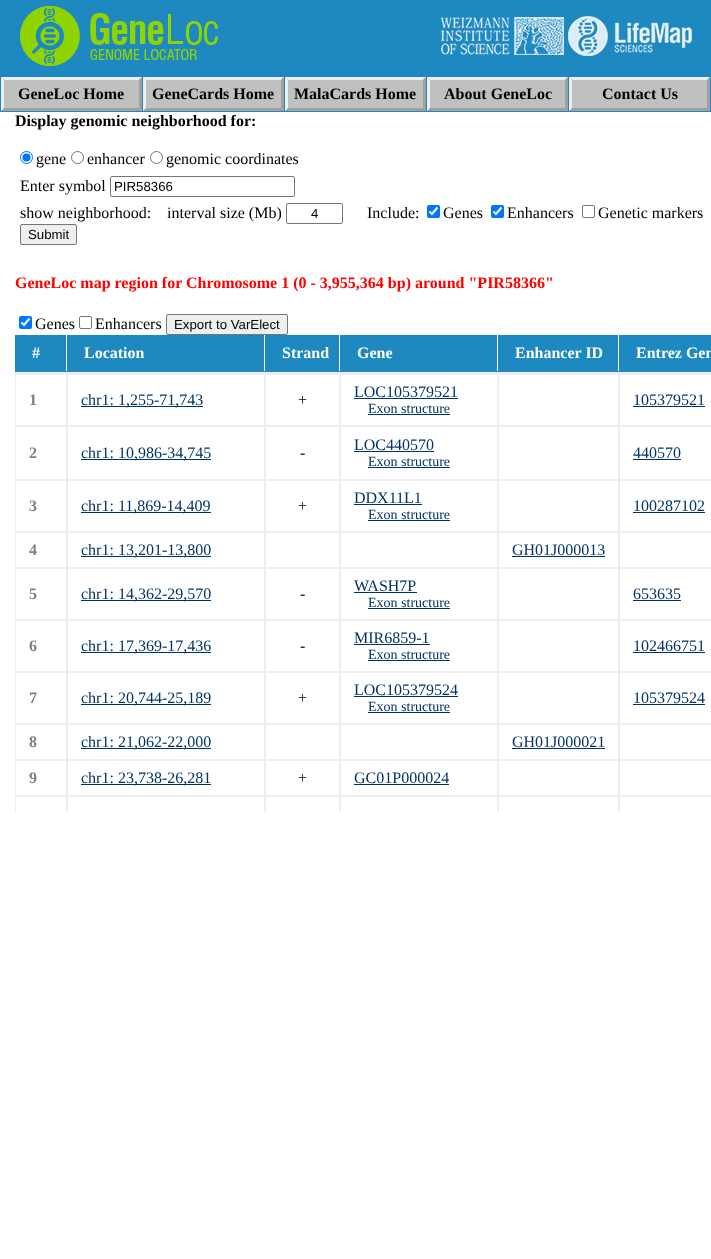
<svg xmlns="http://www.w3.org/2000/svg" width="711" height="1259">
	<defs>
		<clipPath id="clip1"><rect x="15" y="372" width="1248" height="440" /></clipPath>
	</defs>
	<rect width="100%" height="100%" fill="#FFFFFF" />
	<rect x="0" y="0" width="711" height="112" fill="#1E88C1" />
	<image x="20" y="6" width="198" height="60" href="assets/img1.png" />
	<image x="441" y="17" width="123" height="38" href="assets/img2.png" />
	<image x="568" y="16" width="124" height="40" href="assets/img3.png" />
	<rect x="1" y="77" width="141" height="34" fill="#C0C0C0" />
	<path d="M1 77H142L139 80H4Z" fill="#EEEEEE" />
	<path d="M142 77V111L139 108V80Z" fill="#9F9F9F" />
	<path d="M142 111H1L4 108H139Z" fill="#9F9F9F" />
	<path d="M1 111V77L4 80V108Z" fill="#EEEEEE" />
	<text x="18" y="99" font-family="Liberation Serif" font-size="16" font-weight="700" fill="#000000">GeneLoc Home</text>
	<rect x="143" y="77" width="141" height="34" fill="#C0C0C0" />
	<path d="M143 77H284L281 80H146Z" fill="#EEEEEE" />
	<path d="M284 77V111L281 108V80Z" fill="#9F9F9F" />
	<path d="M284 111H143L146 108H281Z" fill="#9F9F9F" />
	<path d="M143 111V77L146 80V108Z" fill="#EEEEEE" />
	<text x="152" y="99" font-family="Liberation Serif" font-size="16" font-weight="700" fill="#000000">GeneCards Home</text>
	<rect x="285" y="77" width="141" height="34" fill="#C0C0C0" />
	<path d="M285 77H426L423 80H288Z" fill="#EEEEEE" />
	<path d="M426 77V111L423 108V80Z" fill="#9F9F9F" />
	<path d="M426 111H285L288 108H423Z" fill="#9F9F9F" />
	<path d="M285 111V77L288 80V108Z" fill="#EEEEEE" />
	<text x="294" y="99" font-family="Liberation Serif" font-size="16" font-weight="700" fill="#000000">MalaCards Home</text>
	<rect x="427" y="77" width="141" height="34" fill="#C0C0C0" />
	<path d="M427 77H568L565 80H430Z" fill="#EEEEEE" />
	<path d="M568 77V111L565 108V80Z" fill="#9F9F9F" />
	<path d="M568 111H427L430 108H565Z" fill="#9F9F9F" />
	<path d="M427 111V77L430 80V108Z" fill="#EEEEEE" />
	<text x="444" y="99" font-family="Liberation Serif" font-size="16" font-weight="700" fill="#000000">About GeneLoc</text>
	<rect x="569" y="77" width="141" height="34" fill="#C0C0C0" />
	<path d="M569 77H710L707 80H572Z" fill="#EEEEEE" />
	<path d="M710 77V111L707 108V80Z" fill="#9F9F9F" />
	<path d="M710 111H569L572 108H707Z" fill="#9F9F9F" />
	<path d="M569 111V77L572 80V108Z" fill="#EEEEEE" />
	<g font-family="Liberation Serif" font-size="16" font-weight="700" fill="#000000">
		<text x="602" y="99">Contact Us</text>
		<text x="15" y="126">Display genomic neighborhood for:</text>
	</g>
	<circle cx="26.5" cy="157.5" r="6" fill="none" stroke="#0075FF" />
	<circle cx="26.5" cy="157.5" r="4" fill="#0075FF" />
	<text x="36" y="164" font-family="Liberation Serif" font-size="16" fill="#000000">gene</text>
	<circle cx="77.5" cy="157.5" r="6" fill="none" stroke="#767676" />
	<text x="87" y="164" font-family="Liberation Serif" font-size="16" fill="#000000">enhancer</text>
	<circle cx="156.5" cy="157.5" r="6" fill="none" stroke="#767676" />
	<g font-family="Liberation Serif" font-size="16" fill="#000000">
		<text x="166" y="164">genomic coordinates</text>
		<text x="20" y="191">Enter symbol</text>
	</g>
	<rect x="110.5" y="176.5" width="184" height="20" rx="1.5" fill="none" stroke="#767676" />
	<text x="114" y="191" font-family="Liberation Sans" font-size="13.25" fill="#000000">PIR58366</text>
	<text x="20" y="218" font-family="Liberation Serif" font-size="16" fill="#000000" xml:space="preserve">show neighborhood:    interval size (Mb)</text>
	<rect x="286.5" y="203.5" width="56" height="20" rx="1.5" fill="none" stroke="#767676" />
	<text x="311" y="218" font-family="Liberation Sans" font-size="13.25" fill="#000000">4</text>
	<text x="367" y="218" font-family="Liberation Serif" font-size="16" fill="#000000">Include:</text>
	<rect x="427" y="205" width="13" height="13" rx="2" fill="#0075FF" />
	<path d="M429.5 211.5L432 214L437.5 207.5" fill="none" stroke="#FFFFFF" stroke-width="2.1" />
	<text x="443" y="218" font-family="Liberation Serif" font-size="16" fill="#000000">Genes</text>
	<rect x="491" y="205" width="13" height="13" rx="2" fill="#0075FF" />
	<path d="M493.5 211.5L496 214L501.5 207.5" fill="none" stroke="#FFFFFF" stroke-width="2.1" />
	<text x="507" y="218" font-family="Liberation Serif" font-size="16" fill="#000000">Enhancers</text>
	<rect x="582.5" y="205.5" width="12" height="12" rx="1.5" fill="none" stroke="#767676" />
	<text x="598" y="218" font-family="Liberation Serif" font-size="16" fill="#000000">Genetic markers</text>
	<rect x="20.5" y="224.5" width="56" height="20" rx="1.5" fill="#EFEFEF" stroke="#767676" />
	<text x="28" y="239" font-family="Liberation Sans" font-size="13.25" fill="#000000">Submit</text>
	<text x="15" y="288" font-family="Liberation Serif" font-size="16" font-weight="700" fill="#FF0000">GeneLoc map region for Chromosome 1 (0 - 3,955,364 bp) around "PIR58366"</text>
	<rect x="19" y="316" width="13" height="13" rx="2" fill="#0075FF" />
	<path d="M21.5 322.5L24 325L29.5 318.5" fill="none" stroke="#FFFFFF" stroke-width="2.1" />
	<text x="35" y="329" font-family="Liberation Serif" font-size="16" fill="#000000">Genes</text>
	<rect x="79.5" y="316.5" width="12" height="12" rx="1.5" fill="none" stroke="#767676" />
	<text x="95" y="329" font-family="Liberation Serif" font-size="16" fill="#000000">Enhancers</text>
	<rect x="166.5" y="314.5" width="121" height="20" rx="1.5" fill="#EFEFEF" stroke="#767676" />
	<text x="174" y="329" font-family="Liberation Sans" font-size="13.25" fill="#000000">Export to VarElect</text>
	<rect x="15" y="335" width="696" height="37" fill="#1E88C1" />
	<rect x="15" y="372" width="696" height="2" fill="#EEEEEE" />
	<text x="32" y="358" font-family="Liberation Serif" font-size="16" font-weight="700" fill="#FFFFFF">#</text>
	<rect x="66" y="335" width="1" height="36" fill="#FFFFFF" />
	<text x="84" y="358" font-family="Liberation Serif" font-size="16" font-weight="700" fill="#FFFFFF">Location</text>
	<rect x="264" y="335" width="1" height="36" fill="#FFFFFF" />
	<text x="282" y="358" font-family="Liberation Serif" font-size="16" font-weight="700" fill="#FFFFFF">Strand</text>
	<rect x="339" y="335" width="1" height="36" fill="#FFFFFF" />
	<text x="357" y="358" font-family="Liberation Serif" font-size="16" font-weight="700" fill="#FFFFFF">Gene</text>
	<rect x="497" y="335" width="1" height="36" fill="#FFFFFF" />
	<text x="515" y="358" font-family="Liberation Serif" font-size="16" font-weight="700" fill="#FFFFFF">Enhancer ID</text>
	<rect x="618" y="335" width="1" height="36" fill="#FFFFFF" />
	<text x="636" y="358" font-family="Liberation Serif" font-size="16" font-weight="700" fill="#FFFFFF">Entrez Gen</text>
	<rect x="15.5" y="374.5" width="51" height="51" fill="none" stroke="#EEEEEE" />
	<text x="29" y="405" font-family="Liberation Serif" font-size="16" font-weight="700" fill="#808080">1</text>
	<rect x="67.5" y="374.5" width="197" height="51" fill="none" stroke="#EEEEEE" />
	<rect x="81" y="406" width="122" height="1" fill="#003366" />
	<text x="81" y="405" font-family="Liberation Serif" font-size="16" fill="#003366">chr1: 1,255-71,743</text>
	<rect x="265.5" y="374.5" width="74" height="51" fill="none" stroke="#EEEEEE" />
	<text x="298" y="405" font-family="Liberation Serif" font-size="16" fill="#000000">+</text>
	<rect x="340.5" y="374.5" width="157" height="51" fill="none" stroke="#EEEEEE" />
	<text x="354" y="397" font-family="Liberation Serif" font-size="16" fill="#003366">LOC105379521</text>
	<rect x="354" y="398" width="104" height="1" fill="#003366" />
	<text x="368" y="413" font-family="Liberation Serif" font-size="14" fill="#003366">Exon structure</text>
	<rect x="368" y="414" width="82" height="1" fill="#003366" />
	<rect x="498.5" y="374.5" width="120" height="51" fill="none" stroke="#EEEEEE" />
	<rect x="619.5" y="374.5" width="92" height="51" fill="none" stroke="#EEEEEE" />
	<text x="633" y="405" font-family="Liberation Serif" font-size="16" fill="#003366">105379521</text>
	<rect x="633" y="406" width="72" height="1" fill="#003366" />
	<rect x="15.5" y="426.5" width="51" height="53" fill="none" stroke="#EEEEEE" />
	<text x="29" y="458" font-family="Liberation Serif" font-size="16" font-weight="700" fill="#808080">2</text>
	<rect x="67.5" y="426.5" width="197" height="53" fill="none" stroke="#EEEEEE" />
	<rect x="81" y="459" width="130" height="1" fill="#003366" />
	<text x="81" y="458" font-family="Liberation Serif" font-size="16" fill="#003366">chr1: 10,986-34,745</text>
	<rect x="265.5" y="426.5" width="74" height="53" fill="none" stroke="#EEEEEE" />
	<text x="300" y="458" font-family="Liberation Serif" font-size="16" fill="#000000">-</text>
	<rect x="340.5" y="426.5" width="157" height="53" fill="none" stroke="#EEEEEE" />
	<text x="354" y="450" font-family="Liberation Serif" font-size="16" fill="#003366">LOC440570</text>
	<rect x="354" y="451" width="80" height="1" fill="#003366" />
	<text x="368" y="466" font-family="Liberation Serif" font-size="14" fill="#003366">Exon structure</text>
	<rect x="368" y="467" width="82" height="1" fill="#003366" />
	<rect x="498.5" y="426.5" width="120" height="53" fill="none" stroke="#EEEEEE" />
	<rect x="619.5" y="426.5" width="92" height="53" fill="none" stroke="#EEEEEE" />
	<text x="633" y="458" font-family="Liberation Serif" font-size="16" fill="#003366">440570</text>
	<rect x="633" y="459" width="48" height="1" fill="#003366" />
	<rect x="15.5" y="480.5" width="51" height="51" fill="none" stroke="#EEEEEE" />
	<text x="29" y="511" font-family="Liberation Serif" font-size="16" font-weight="700" fill="#808080">3</text>
	<rect x="67.5" y="480.5" width="197" height="51" fill="none" stroke="#EEEEEE" />
	<rect x="81" y="512" width="130" height="1" fill="#003366" />
	<text x="81" y="511" font-family="Liberation Serif" font-size="16" fill="#003366">chr1: 11,869-14,409</text>
	<rect x="265.5" y="480.5" width="74" height="51" fill="none" stroke="#EEEEEE" />
	<text x="298" y="511" font-family="Liberation Serif" font-size="16" fill="#000000">+</text>
	<rect x="340.5" y="480.5" width="157" height="51" fill="none" stroke="#EEEEEE" />
	<text x="354" y="503" font-family="Liberation Serif" font-size="16" fill="#003366">DDX11L1</text>
	<rect x="354" y="504" width="68" height="1" fill="#003366" />
	<text x="368" y="519" font-family="Liberation Serif" font-size="14" fill="#003366">Exon structure</text>
	<rect x="368" y="520" width="82" height="1" fill="#003366" />
	<rect x="498.5" y="480.5" width="120" height="51" fill="none" stroke="#EEEEEE" />
	<rect x="619.5" y="480.5" width="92" height="51" fill="none" stroke="#EEEEEE" />
	<text x="633" y="511" font-family="Liberation Serif" font-size="16" fill="#003366">100287102</text>
	<rect x="633" y="512" width="72" height="1" fill="#003366" />
	<rect x="15.5" y="532.5" width="51" height="35" fill="none" stroke="#EEEEEE" />
	<text x="29" y="555" font-family="Liberation Serif" font-size="16" font-weight="700" fill="#808080">4</text>
	<rect x="67.5" y="532.5" width="197" height="35" fill="none" stroke="#EEEEEE" />
	<rect x="81" y="556" width="130" height="1" fill="#003366" />
	<text x="81" y="555" font-family="Liberation Serif" font-size="16" fill="#003366">chr1: 13,201-13,800</text>
	<rect x="265.5" y="532.5" width="74" height="35" fill="none" stroke="#EEEEEE" />
	<rect x="340.5" y="532.5" width="157" height="35" fill="none" stroke="#EEEEEE" />
	<rect x="498.5" y="532.5" width="120" height="35" fill="none" stroke="#EEEEEE" />
	<text x="512" y="555" font-family="Liberation Serif" font-size="16" fill="#003366">GH01J000013</text>
	<rect x="512" y="556" width="93" height="1" fill="#003366" />
	<rect x="619.5" y="532.5" width="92" height="35" fill="none" stroke="#EEEEEE" />
	<rect x="15.5" y="568.5" width="51" height="51" fill="none" stroke="#EEEEEE" />
	<text x="29" y="599" font-family="Liberation Serif" font-size="16" font-weight="700" fill="#808080">5</text>
	<rect x="67.5" y="568.5" width="197" height="51" fill="none" stroke="#EEEEEE" />
	<rect x="81" y="600" width="130" height="1" fill="#003366" />
	<text x="81" y="599" font-family="Liberation Serif" font-size="16" fill="#003366">chr1: 14,362-29,570</text>
	<rect x="265.5" y="568.5" width="74" height="51" fill="none" stroke="#EEEEEE" />
	<text x="300" y="599" font-family="Liberation Serif" font-size="16" fill="#000000">-</text>
	<rect x="340.5" y="568.5" width="157" height="51" fill="none" stroke="#EEEEEE" />
	<text x="354" y="591" font-family="Liberation Serif" font-size="16" fill="#003366">WASH7P</text>
	<rect x="354" y="592" width="63" height="1" fill="#003366" />
	<text x="368" y="607" font-family="Liberation Serif" font-size="14" fill="#003366">Exon structure</text>
	<rect x="368" y="608" width="82" height="1" fill="#003366" />
	<rect x="498.5" y="568.5" width="120" height="51" fill="none" stroke="#EEEEEE" />
	<rect x="619.5" y="568.5" width="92" height="51" fill="none" stroke="#EEEEEE" />
	<text x="633" y="599" font-family="Liberation Serif" font-size="16" fill="#003366">653635</text>
	<rect x="633" y="600" width="48" height="1" fill="#003366" />
	<rect x="15.5" y="620.5" width="51" height="51" fill="none" stroke="#EEEEEE" />
	<text x="29" y="651" font-family="Liberation Serif" font-size="16" font-weight="700" fill="#808080">6</text>
	<rect x="67.5" y="620.5" width="197" height="51" fill="none" stroke="#EEEEEE" />
	<rect x="81" y="652" width="130" height="1" fill="#003366" />
	<text x="81" y="651" font-family="Liberation Serif" font-size="16" fill="#003366">chr1: 17,369-17,436</text>
	<rect x="265.5" y="620.5" width="74" height="51" fill="none" stroke="#EEEEEE" />
	<text x="300" y="651" font-family="Liberation Serif" font-size="16" fill="#000000">-</text>
	<rect x="340.5" y="620.5" width="157" height="51" fill="none" stroke="#EEEEEE" />
	<text x="354" y="643" font-family="Liberation Serif" font-size="16" fill="#003366">MIR6859-1</text>
	<rect x="354" y="644" width="76" height="1" fill="#003366" />
	<text x="368" y="659" font-family="Liberation Serif" font-size="14" fill="#003366">Exon structure</text>
	<rect x="368" y="660" width="82" height="1" fill="#003366" />
	<rect x="498.5" y="620.5" width="120" height="51" fill="none" stroke="#EEEEEE" />
	<rect x="619.5" y="620.5" width="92" height="51" fill="none" stroke="#EEEEEE" />
	<text x="633" y="651" font-family="Liberation Serif" font-size="16" fill="#003366">102466751</text>
	<rect x="633" y="652" width="72" height="1" fill="#003366" />
	<rect x="15.5" y="672.5" width="51" height="51" fill="none" stroke="#EEEEEE" />
	<text x="29" y="703" font-family="Liberation Serif" font-size="16" font-weight="700" fill="#808080">7</text>
	<rect x="67.5" y="672.5" width="197" height="51" fill="none" stroke="#EEEEEE" />
	<rect x="81" y="704" width="130" height="1" fill="#003366" />
	<text x="81" y="703" font-family="Liberation Serif" font-size="16" fill="#003366">chr1: 20,744-25,189</text>
	<rect x="265.5" y="672.5" width="74" height="51" fill="none" stroke="#EEEEEE" />
	<text x="298" y="703" font-family="Liberation Serif" font-size="16" fill="#000000">+</text>
	<rect x="340.5" y="672.5" width="157" height="51" fill="none" stroke="#EEEEEE" />
	<text x="354" y="695" font-family="Liberation Serif" font-size="16" fill="#003366">LOC105379524</text>
	<rect x="354" y="696" width="104" height="1" fill="#003366" />
	<text x="368" y="711" font-family="Liberation Serif" font-size="14" fill="#003366">Exon structure</text>
	<rect x="368" y="712" width="82" height="1" fill="#003366" />
	<rect x="498.5" y="672.5" width="120" height="51" fill="none" stroke="#EEEEEE" />
	<rect x="619.5" y="672.5" width="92" height="51" fill="none" stroke="#EEEEEE" />
	<text x="633" y="703" font-family="Liberation Serif" font-size="16" fill="#003366">105379524</text>
	<rect x="633" y="704" width="72" height="1" fill="#003366" />
	<rect x="15.5" y="724.5" width="51" height="35" fill="none" stroke="#EEEEEE" />
	<text x="29" y="747" font-family="Liberation Serif" font-size="16" font-weight="700" fill="#808080">8</text>
	<rect x="67.5" y="724.5" width="197" height="35" fill="none" stroke="#EEEEEE" />
	<rect x="81" y="748" width="130" height="1" fill="#003366" />
	<text x="81" y="747" font-family="Liberation Serif" font-size="16" fill="#003366">chr1: 21,062-22,000</text>
	<rect x="265.5" y="724.5" width="74" height="35" fill="none" stroke="#EEEEEE" />
	<rect x="340.5" y="724.5" width="157" height="35" fill="none" stroke="#EEEEEE" />
	<rect x="498.5" y="724.5" width="120" height="35" fill="none" stroke="#EEEEEE" />
	<text x="512" y="747" font-family="Liberation Serif" font-size="16" fill="#003366">GH01J000021</text>
	<rect x="512" y="748" width="93" height="1" fill="#003366" />
	<rect x="619.5" y="724.5" width="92" height="35" fill="none" stroke="#EEEEEE" />
	<rect x="15.5" y="760.5" width="51" height="35" fill="none" stroke="#EEEEEE" />
	<text x="29" y="783" font-family="Liberation Serif" font-size="16" font-weight="700" fill="#808080">9</text>
	<rect x="67.5" y="760.5" width="197" height="35" fill="none" stroke="#EEEEEE" />
	<rect x="81" y="784" width="130" height="1" fill="#003366" />
	<text x="81" y="783" font-family="Liberation Serif" font-size="16" fill="#003366">chr1: 23,738-26,281</text>
	<rect x="265.5" y="760.5" width="74" height="35" fill="none" stroke="#EEEEEE" />
	<text x="298" y="783" font-family="Liberation Serif" font-size="16" fill="#000000">+</text>
	<rect x="340.5" y="760.5" width="157" height="35" fill="none" stroke="#EEEEEE" />
	<text x="354" y="783" font-family="Liberation Serif" font-size="16" fill="#003366">GC01P000024</text>
	<rect x="354" y="784" width="95" height="1" fill="#003366" />
	<rect x="498.5" y="760.5" width="120" height="35" fill="none" stroke="#EEEEEE" />
	<rect x="619.5" y="760.5" width="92" height="35" fill="none" stroke="#EEEEEE" />
	<g clip-path="url(#clip1)">
		<rect x="15.5" y="796.5" width="51" height="35" fill="none" stroke="#EEEEEE" />
		<rect x="67.5" y="796.5" width="197" height="35" fill="none" stroke="#EEEEEE" />
		<rect x="265.5" y="796.5" width="74" height="35" fill="none" stroke="#EEEEEE" />
		<rect x="340.5" y="796.5" width="157" height="35" fill="none" stroke="#EEEEEE" />
		<rect x="498.5" y="796.5" width="120" height="35" fill="none" stroke="#EEEEEE" />
		<rect x="619.5" y="796.5" width="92" height="35" fill="none" stroke="#EEEEEE" />
	</g>
</svg>
